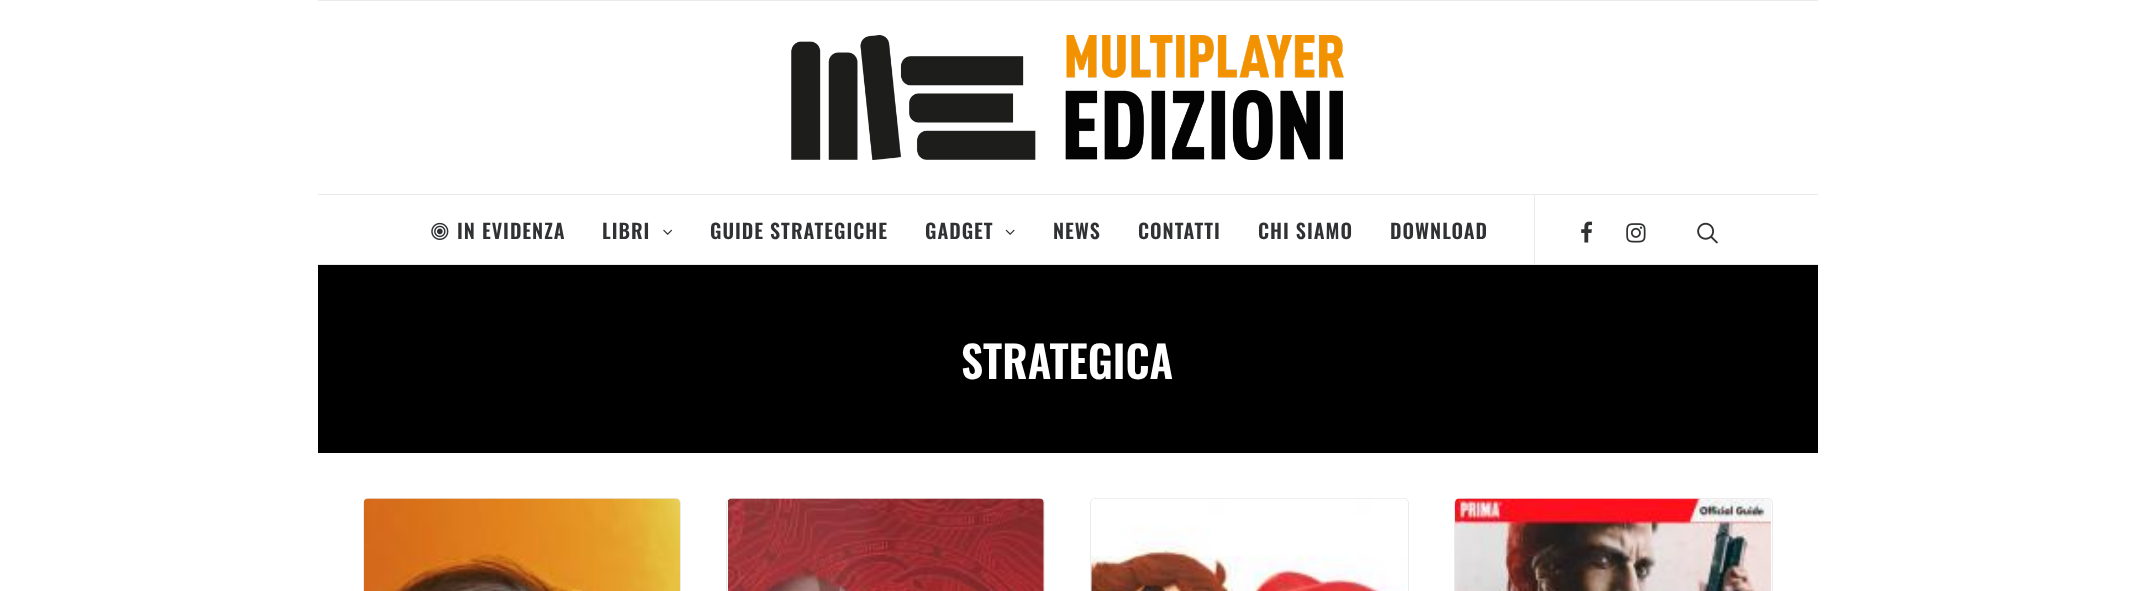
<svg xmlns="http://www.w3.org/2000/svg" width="2135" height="591">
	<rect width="100%" height="100%" fill="#FFFFFF" />
	<rect x="318" y="0" width="1500" height="1" fill="#EAEAEA" />
	<image x="791" y="35" width="553" height="125" href="assets/img1.png" />
	<rect x="318" y="194" width="1500" height="1" fill="#EAEAEA" />
	<rect x="318" y="264" width="1500" height="1" fill="#EAEAEA" />
	<image x="431" y="222" width="18" height="18" href="assets/img2.png" />
	<g font-family="Oswald" font-size="20" font-weight="600" letter-spacing="1" fill="#303133">
		<text x="457" y="239">IN EVIDENZA</text>
		<text x="602" y="239">LIBRI</text>
	</g>
	<image x="663" y="229" width="10" height="6" href="assets/img3.png" />
	<g font-family="Oswald" font-size="20" font-weight="600" letter-spacing="1" fill="#303133">
		<text x="710" y="239">GUIDE STRATEGICHE</text>
		<text x="925" y="239">GADGET</text>
	</g>
	<image x="1005" y="229" width="10" height="6" href="assets/img4.png" />
	<g font-family="Oswald" font-size="20" font-weight="600" letter-spacing="1" fill="#303133">
		<text x="1053" y="239">NEWS</text>
		<text x="1138" y="239">CONTATTI</text>
		<text x="1258" y="239">CHI SIAMO</text>
		<text x="1390" y="239">DOWNLOAD</text>
	</g>
	<rect x="1534" y="195" width="1" height="69" fill="#EAEAEA" />
	<image x="1581" y="221" width="12" height="22" href="assets/img5.png" />
	<image x="1626" y="223" width="20" height="20" href="assets/img6.png" />
	<image x="1697" y="222" width="21" height="22" href="assets/img7.png" />
	<rect x="318" y="265" width="1500" height="188" fill="#000000" />
	<text x="961" y="379" font-family="Oswald" font-size="43.75" font-weight="600" fill="#FFFFFF">STRATEGICA</text>
	<rect x="363.5" y="498.5" width="317" height="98" rx="4.5" fill="none" stroke="#EAEAEA" />
	<image x="364" y="498" width="316" height="93" href="assets/img8.png" />
	<rect x="726.5" y="498.5" width="318" height="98" rx="4.5" fill="none" stroke="#EAEAEA" />
	<image x="728" y="498" width="316" height="93" href="assets/img9.png" />
	<rect x="1090.5" y="498.5" width="318" height="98" rx="4.5" fill="none" stroke="#EAEAEA" />
	<image x="1091" y="498" width="316" height="93" href="assets/img10.png" />
	<rect x="1454.5" y="498.5" width="318" height="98" rx="4.5" fill="none" stroke="#EAEAEA" />
	<image x="1455" y="498" width="316" height="93" href="assets/img11.png" />
</svg>
